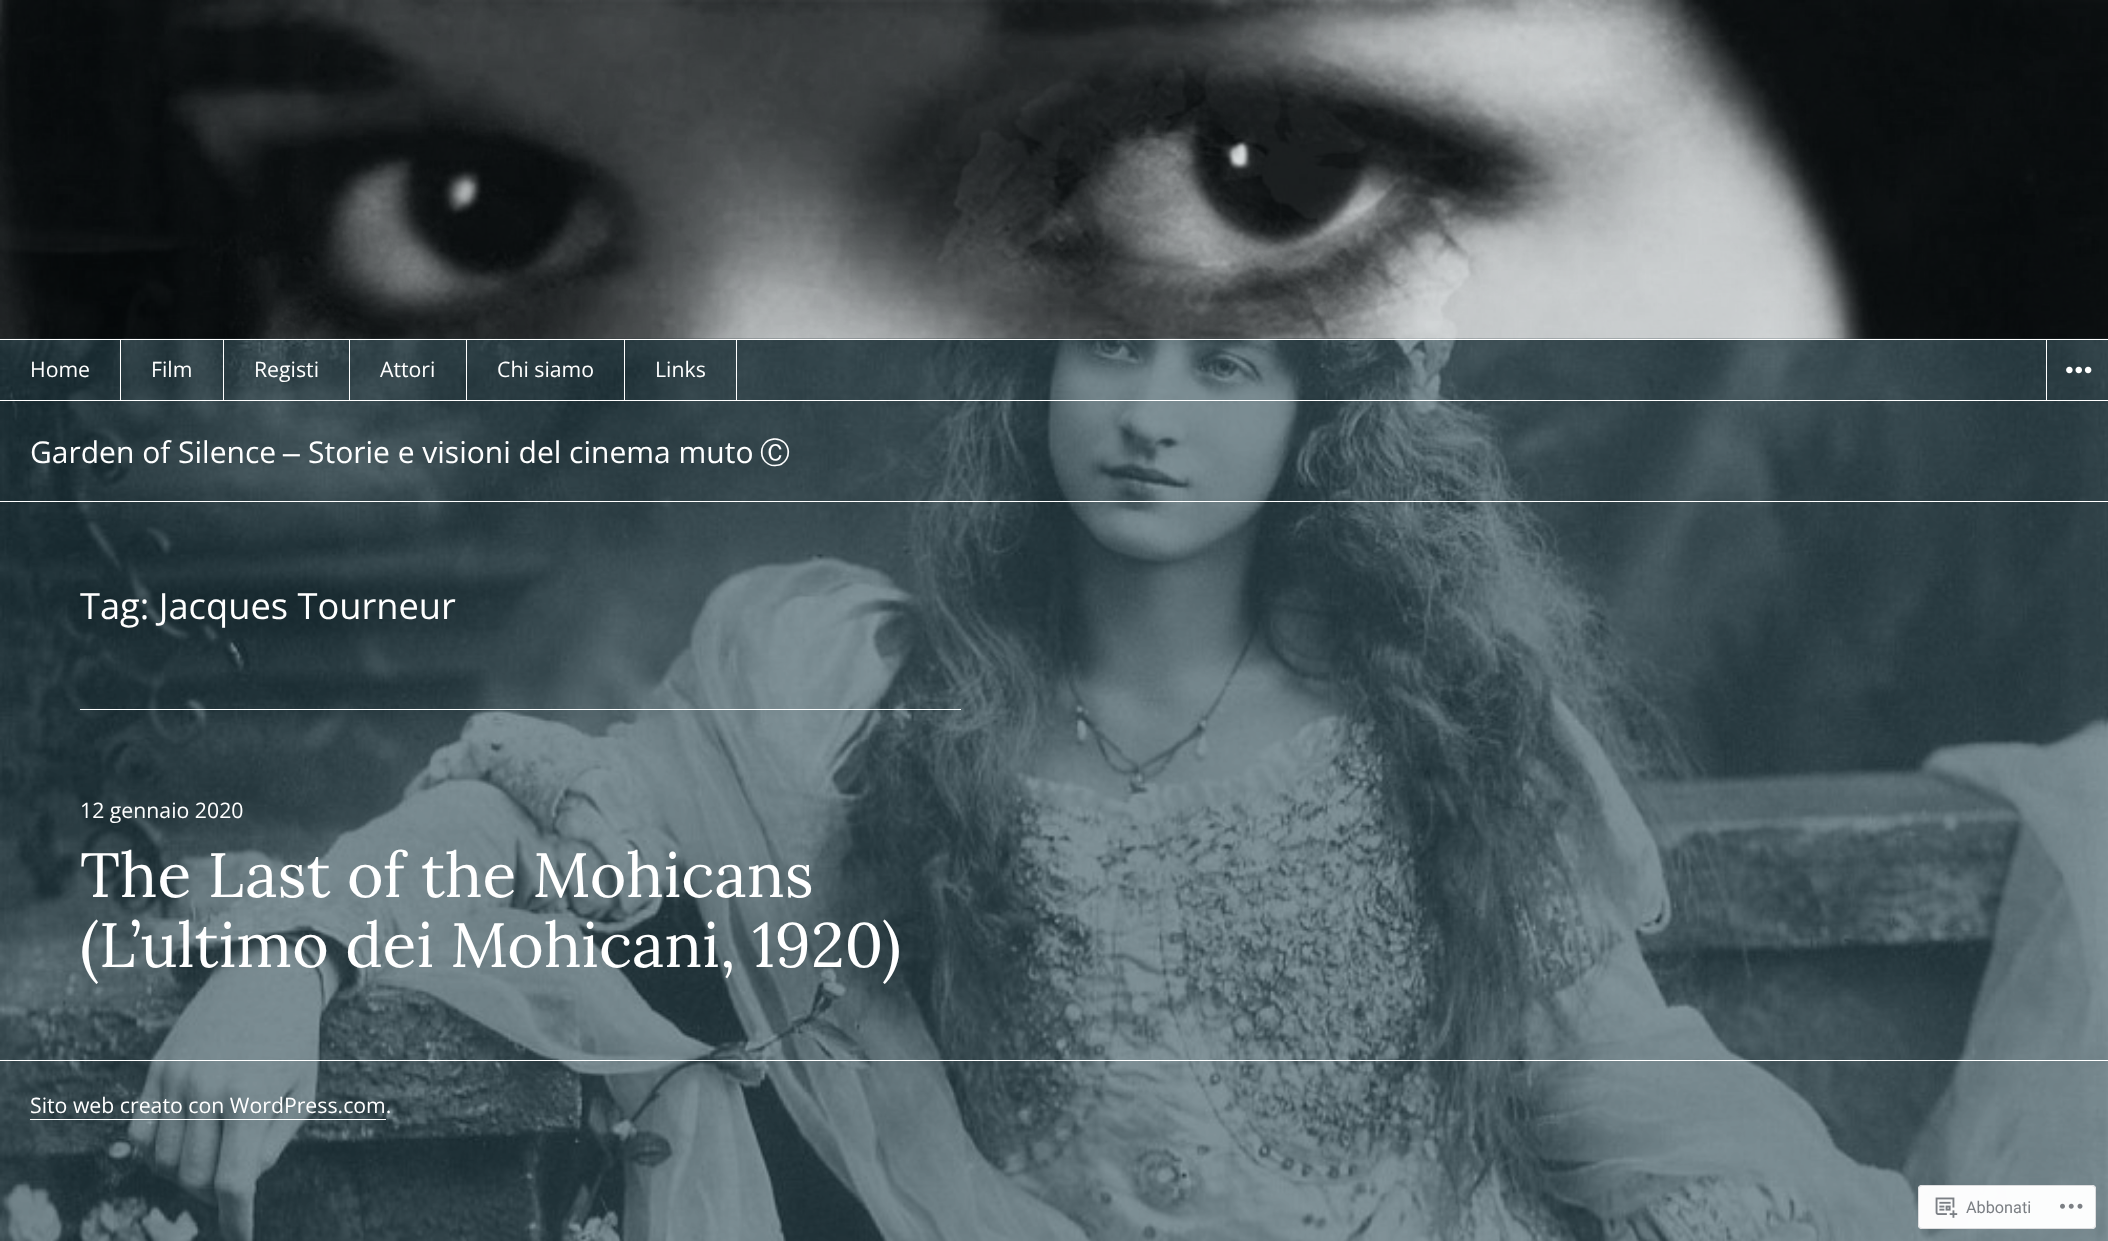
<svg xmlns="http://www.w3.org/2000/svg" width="2108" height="1241">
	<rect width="100%" height="100%" fill="#FFFFFF" />
	<image x="0" y="0" width="2108" height="1241" href="assets/img1.png" />
	<rect x="0" y="339" width="2108" height="1" fill="#FFFFFF" />
	<image x="0" y="0" width="2108" height="339" href="assets/img2.png" />
	<rect x="0" y="501" width="2108" height="1" fill="#FFFFFF" />
	<rect x="0" y="400" width="2108" height="1" fill="#FFFFFF" />
	<rect x="120" y="339" width="1" height="62" fill="#FFFFFF" />
	<text x="30" y="377" font-family="Open Sans" font-size="21.25" fill="#FFFFFF">Home</text>
	<rect x="223" y="339" width="1" height="62" fill="#FFFFFF" />
	<text x="151" y="377" font-family="Open Sans" font-size="21.25" fill="#FFFFFF">Film</text>
	<rect x="349" y="339" width="1" height="62" fill="#FFFFFF" />
	<text x="254" y="377" font-family="Open Sans" font-size="21.25" fill="#FFFFFF">Registi</text>
	<rect x="466" y="339" width="1" height="62" fill="#FFFFFF" />
	<text x="380" y="377" font-family="Open Sans" font-size="21.25" fill="#FFFFFF">Attori</text>
	<rect x="624" y="339" width="1" height="62" fill="#FFFFFF" />
	<text x="497" y="377" font-family="Open Sans" font-size="21.25" fill="#FFFFFF">Chi siamo</text>
	<rect x="736" y="339" width="1" height="62" fill="#FFFFFF" />
	<text x="655" y="377" font-family="Open Sans" font-size="21.25" fill="#FFFFFF">Links</text>
	<rect x="2046" y="339" width="1" height="62" fill="#FFFFFF" />
	<image x="2066" y="366" width="26" height="8" href="assets/img3.png" />
	<text x="30" y="463" font-family="Open Sans" font-size="30" fill="#FFFFFF">Garden of Silence</text>
	<text x="283" y="463" font-family="WenQuanYi Zen Hei" font-size="30" font-weight="500" fill="#FFFFFF">–</text>
	<text x="308" y="463" font-family="Open Sans" font-size="30" fill="#FFFFFF">Storie e visioni del cinema muto</text>
	<text x="760" y="463" font-family="WenQuanYi Zen Hei" font-size="30" font-weight="500" fill="#FFFFFF">Ⓒ</text>
	<rect x="80" y="709" width="881" height="1" fill="#FFFFFF" />
	<text x="80" y="619" font-family="Open Sans" font-size="36.25" fill="#FFFFFF">Tag: Jacques Tourneur</text>
	<text x="80" y="818" font-family="Open Sans" font-size="21.25" fill="#FFFFFF">12 gennaio 2020</text>
	<g font-family="Lora" font-size="62.5" fill="#FFFFFF">
		<text x="80" y="897">The Last of the Mohicans</text>
		<text x="80" y="967">(L’ultimo dei Mohicani, 1920)</text>
	</g>
	<rect x="0" y="1060" width="2108" height="1" fill="#FFFFFF" />
	<text x="30" y="1113" font-family="Open Sans" font-size="21.25" fill="#FFFFFF">Sito web creato con WordPress.com.</text>
	<rect x="30" y="1119" width="356" height="1" fill="#FFFFFF" />
	<rect x="1918" y="1185" width="178" height="44" rx="4" fill="#FFFFFF" fill-opacity="0.98" />
	<rect x="1918.5" y="1185.5" width="177" height="43" rx="3.5" fill="none" stroke="#DCDCDE" stroke-opacity="0.98" />
	<image x="1935" y="1197" width="23" height="21" href="assets/img4.png" />
	<text x="1966" y="1213" font-family="Roboto" font-size="16.25" fill="#7B7F84">Abbonati</text>
	<image x="2060" y="1203" width="23" height="6" href="assets/img5.png" />
</svg>
